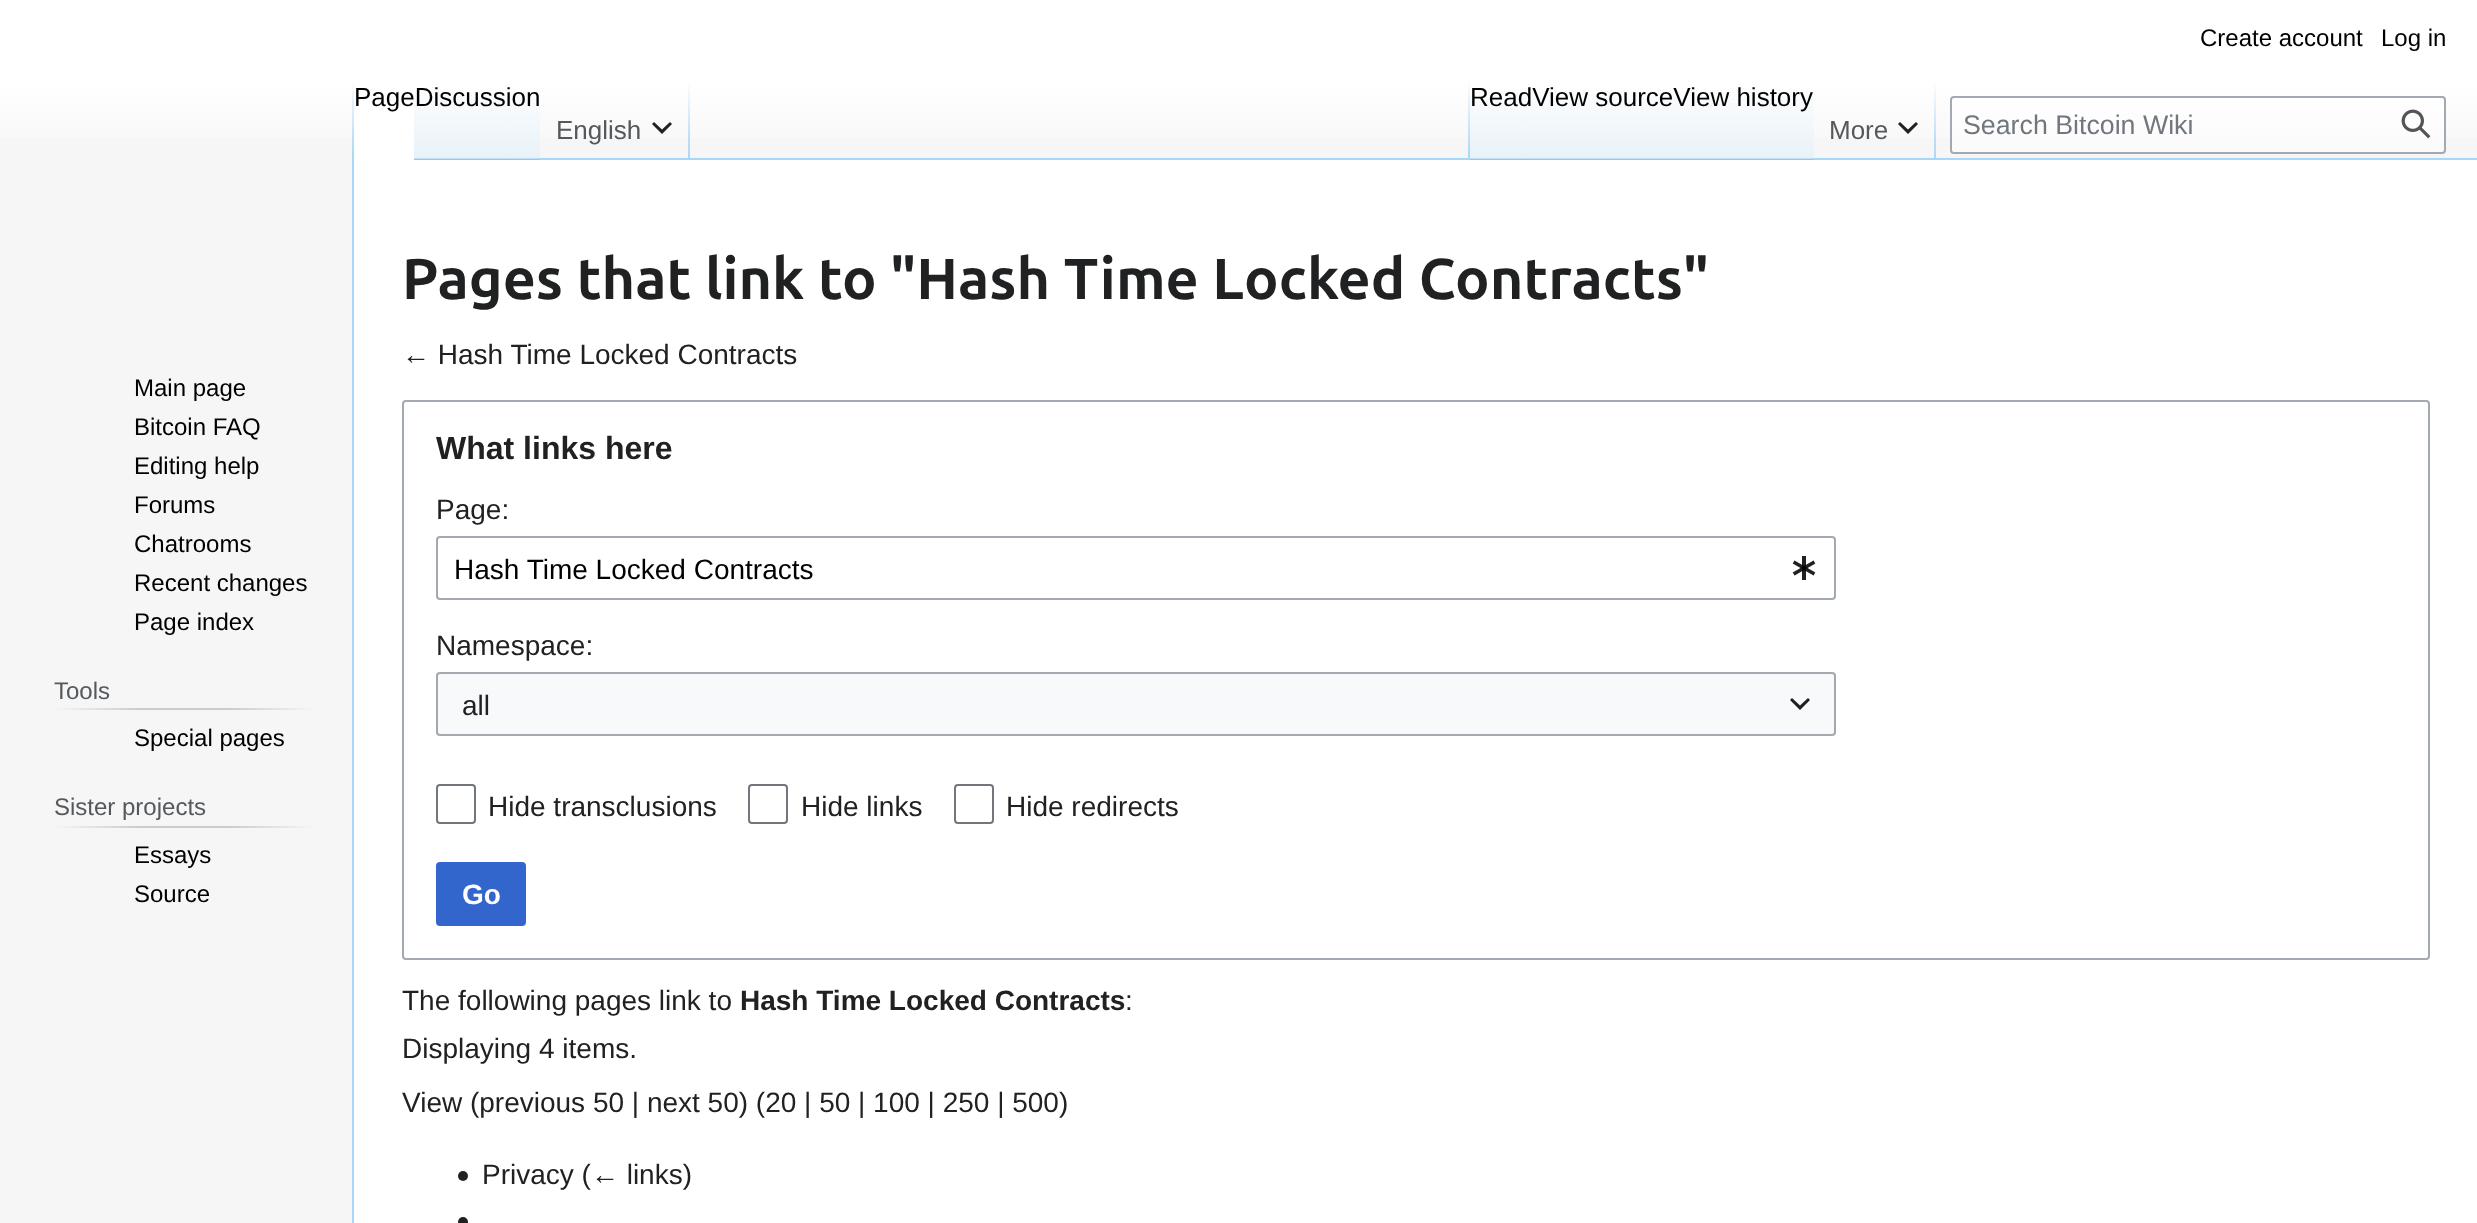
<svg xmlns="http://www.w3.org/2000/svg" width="2477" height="1223">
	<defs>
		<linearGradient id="g1" gradientUnits="userSpaceOnUse" x1="1239" y1="0" x2="1239" y2="160"><stop offset="0.5" stop-color="#FFFFFF" /><stop offset="1" stop-color="#F6F6F6" /></linearGradient>
		<linearGradient id="g2" gradientUnits="userSpaceOnUse" x1="353" y1="80" x2="353" y2="160"><stop offset="0" stop-color="#A7D7F9" stop-opacity="0" /><stop offset="1" stop-color="#A7D7F9" /></linearGradient>
		<linearGradient id="g3" gradientUnits="userSpaceOnUse" x1="477" y1="160" x2="477" y2="80"><stop offset="0" stop-color="#77C1F6" /><stop offset="0.03" stop-color="#E8F2F8" /><stop offset="1" stop-color="#FFFFFF" /></linearGradient>
		<linearGradient id="g4" gradientUnits="userSpaceOnUse" x1="689" y1="80" x2="689" y2="160"><stop offset="0" stop-color="#A7D7F9" stop-opacity="0" /><stop offset="1" stop-color="#A7D7F9" /></linearGradient>
		<linearGradient id="g5" gradientUnits="userSpaceOnUse" x1="1469" y1="80" x2="1469" y2="160"><stop offset="0" stop-color="#A7D7F9" stop-opacity="0" /><stop offset="1" stop-color="#A7D7F9" /></linearGradient>
		<linearGradient id="g6" gradientUnits="userSpaceOnUse" x1="1501" y1="160" x2="1501" y2="80"><stop offset="0" stop-color="#77C1F6" /><stop offset="0.03" stop-color="#E8F2F8" /><stop offset="1" stop-color="#FFFFFF" /></linearGradient>
		<linearGradient id="g7" gradientUnits="userSpaceOnUse" x1="1603" y1="160" x2="1603" y2="80"><stop offset="0" stop-color="#77C1F6" /><stop offset="0.03" stop-color="#E8F2F8" /><stop offset="1" stop-color="#FFFFFF" /></linearGradient>
		<linearGradient id="g8" gradientUnits="userSpaceOnUse" x1="1744" y1="160" x2="1744" y2="80"><stop offset="0" stop-color="#77C1F6" /><stop offset="0.03" stop-color="#E8F2F8" /><stop offset="1" stop-color="#FFFFFF" /></linearGradient>
		<linearGradient id="g9" gradientUnits="userSpaceOnUse" x1="1935" y1="80" x2="1935" y2="160"><stop offset="0" stop-color="#A7D7F9" stop-opacity="0" /><stop offset="1" stop-color="#A7D7F9" /></linearGradient>
		<linearGradient id="g10" gradientUnits="userSpaceOnUse" x1="54" y1="709" x2="316" y2="709"><stop offset="0" stop-color="#F6F6F6" /><stop offset="0.33" stop-color="#C8CCD1" /><stop offset="0.66" stop-color="#C8CCD1" /><stop offset="1" stop-color="#F6F6F6" /></linearGradient>
		<linearGradient id="g11" gradientUnits="userSpaceOnUse" x1="54" y1="827" x2="316" y2="827"><stop offset="0" stop-color="#F6F6F6" /><stop offset="0.33" stop-color="#C8CCD1" /><stop offset="0.66" stop-color="#C8CCD1" /><stop offset="1" stop-color="#F6F6F6" /></linearGradient>
	</defs>
	<rect width="100%" height="100%" fill="#F6F6F6" />
	<rect x="0" y="0" width="2477" height="138" fill="url(#g1)" />
	<g font-family="Liberation Sans" font-size="24" fill="#000000">
		<text x="2200" y="46">Create account</text>
		<text x="2381" y="46">Log in</text>
	</g>
	<rect x="352" y="158" width="2" height="1065" fill="#A7D7F9" />
	<rect x="352" y="80" width="2" height="80" fill="url(#g2)" />
	<rect x="354" y="102" width="60" height="58" fill="#FFFFFF" />
	<rect x="414" y="92" width="126" height="68" fill="url(#g3)" />
	<text x="354" y="106" font-family="Liberation Sans" font-size="26" fill="#000000">PageDiscussion</text>
	<rect x="540" y="158" width="1937" height="2" fill="#A7D7F9" />
	<rect x="688" y="80" width="2" height="80" fill="url(#g4)" />
	<text x="556" y="139" font-family="Liberation Sans" font-size="26" fill="#54595D">English</text>
	<path d="M672 124L670 122L662 129.5L654 122L652 124L662 134Z" fill="#202122" />
	<rect x="1468" y="80" width="2" height="80" fill="url(#g5)" />
	<rect x="1470" y="92" width="62" height="68" fill="url(#g6)" />
	<rect x="1532" y="92" width="142" height="68" fill="url(#g7)" />
	<rect x="1674" y="92" width="140" height="68" fill="url(#g8)" />
	<text x="1470" y="106" font-family="Liberation Sans" font-size="26" fill="#000000">ReadView sourceView history</text>
	<rect x="1934" y="80" width="2" height="80" fill="url(#g9)" />
	<text x="1829" y="139" font-family="Liberation Sans" font-size="26" fill="#54595D">More</text>
	<path d="M1918 124L1916 122L1908 129.5L1900 122L1898 124L1908 134Z" fill="#202122" />
	<rect x="1951" y="97" width="494" height="56" rx="3" fill="#FFFFFF" fill-opacity="0.5" stroke="#A2A9B1" stroke-width="2" />
	<text x="1963" y="134" font-family="Liberation Sans" font-size="26.75" fill="#72777D">Search Bitcoin Wiki</text>
	<image x="2401" y="109" width="30" height="30" href="assets/img1.png" />
	<g font-family="Liberation Sans" font-size="24" fill="#000000">
		<text x="134" y="396">Main page</text>
		<text x="134" y="435">Bitcoin FAQ</text>
		<text x="134" y="474">Editing help</text>
		<text x="134" y="513">Forums</text>
		<text x="134" y="552">Chatrooms</text>
		<text x="134" y="591">Recent changes</text>
		<text x="134" y="630">Page index</text>
	</g>
	<rect x="54" y="708" width="262" height="2" fill="url(#g10)" />
	<text x="54" y="699" font-family="Liberation Sans" font-size="24" fill="#54595D">Tools</text>
	<text x="134" y="746" font-family="Liberation Sans" font-size="24" fill="#000000">Special pages</text>
	<rect x="54" y="826" width="262" height="2" fill="url(#g11)" />
	<text x="54" y="815" font-family="Liberation Sans" font-size="24" fill="#54595D">Sister projects</text>
	<g font-family="Liberation Sans" font-size="24" fill="#000000">
		<text x="134" y="863">Essays</text>
		<text x="134" y="902">Source</text>
	</g>
	<rect x="354" y="160" width="2123" height="1063" fill="#FFFFFF" />
	<text x="402" y="299" font-family="Ubuntu" font-size="57.6" font-weight="700" fill="#202122">Pages that link to "Hash Time Locked Contracts"</text>
	<text x="402" y="364" font-family="Liberation Sans" font-size="28" fill="#202122">← Hash Time Locked Contracts</text>
	<rect x="403" y="401" width="2026" height="558" rx="3" fill="none" stroke="#A2A9B1" stroke-width="2" />
	<text x="436" y="459" font-family="Liberation Sans" font-size="32" font-weight="700" fill="#202122">What links here</text>
	<text x="436" y="519" font-family="Liberation Sans" font-size="28" fill="#202122">Page:</text>
	<rect x="437" y="537" width="1398" height="62" rx="3" fill="none" stroke="#A2A9B1" stroke-width="2" />
	<text x="454" y="579" font-family="Liberation Sans" font-size="28" fill="#000000">Hash Time Locked Contracts</text>
	<image x="1792" y="556" width="24" height="24" href="assets/img2.png" />
	<text x="436" y="655" font-family="Liberation Sans" font-size="28" fill="#202122">Namespace:</text>
	<rect x="436" y="672" width="1400" height="64" fill="#F8F9FA" />
	<rect x="437" y="673" width="1398" height="62" rx="3" fill="none" stroke="#A2A9B1" stroke-width="2" />
	<text x="462" y="715" font-family="Liberation Sans" font-size="28" fill="#202122">all</text>
	<path d="M1808 698L1800 705.5L1792 698L1790 700L1800 710L1810 700Z" fill="#202021" />
	<rect x="437" y="785" width="38" height="38" rx="3" fill="none" stroke="#72777D" stroke-width="2" />
	<text x="488" y="816" font-family="Liberation Sans" font-size="28" fill="#202122">Hide transclusions</text>
	<rect x="749" y="785" width="38" height="38" rx="3" fill="none" stroke="#72777D" stroke-width="2" />
	<text x="801" y="816" font-family="Liberation Sans" font-size="28" fill="#202122">Hide links</text>
	<rect x="955" y="785" width="38" height="38" rx="3" fill="none" stroke="#72777D" stroke-width="2" />
	<text x="1006" y="816" font-family="Liberation Sans" font-size="28" fill="#202122">Hide redirects</text>
	<rect x="437" y="863" width="88" height="62" rx="3" fill="#3366CC" stroke="#3366CC" stroke-width="2" />
	<text x="462" y="904" font-family="Liberation Sans" font-size="28" font-weight="700" fill="#FFFFFF">Go</text>
	<text x="402" y="1010" font-family="Liberation Sans" font-size="28" fill="#202122">The following pages link to</text>
	<text x="740" y="1010" font-family="Liberation Sans" font-size="28" font-weight="700" fill="#202122">Hash Time Locked Contracts</text>
	<g font-family="Liberation Sans" font-size="28" fill="#202122">
		<text x="1125" y="1010">:</text>
		<text x="402" y="1058">Displaying 4 items.</text>
		<text x="402" y="1112">View (previous 50 | next 50) (20 | 50 | 100 | 250 | 500)</text>
	</g>
	<image x="458" y="1171" width="10" height="10" href="assets/img3.png" />
	<text x="482" y="1184" font-family="Liberation Sans" font-size="28" fill="#202122">Privacy (← links)</text>
	<image x="458" y="1217" width="10" height="6" href="assets/img4.png" />
</svg>
